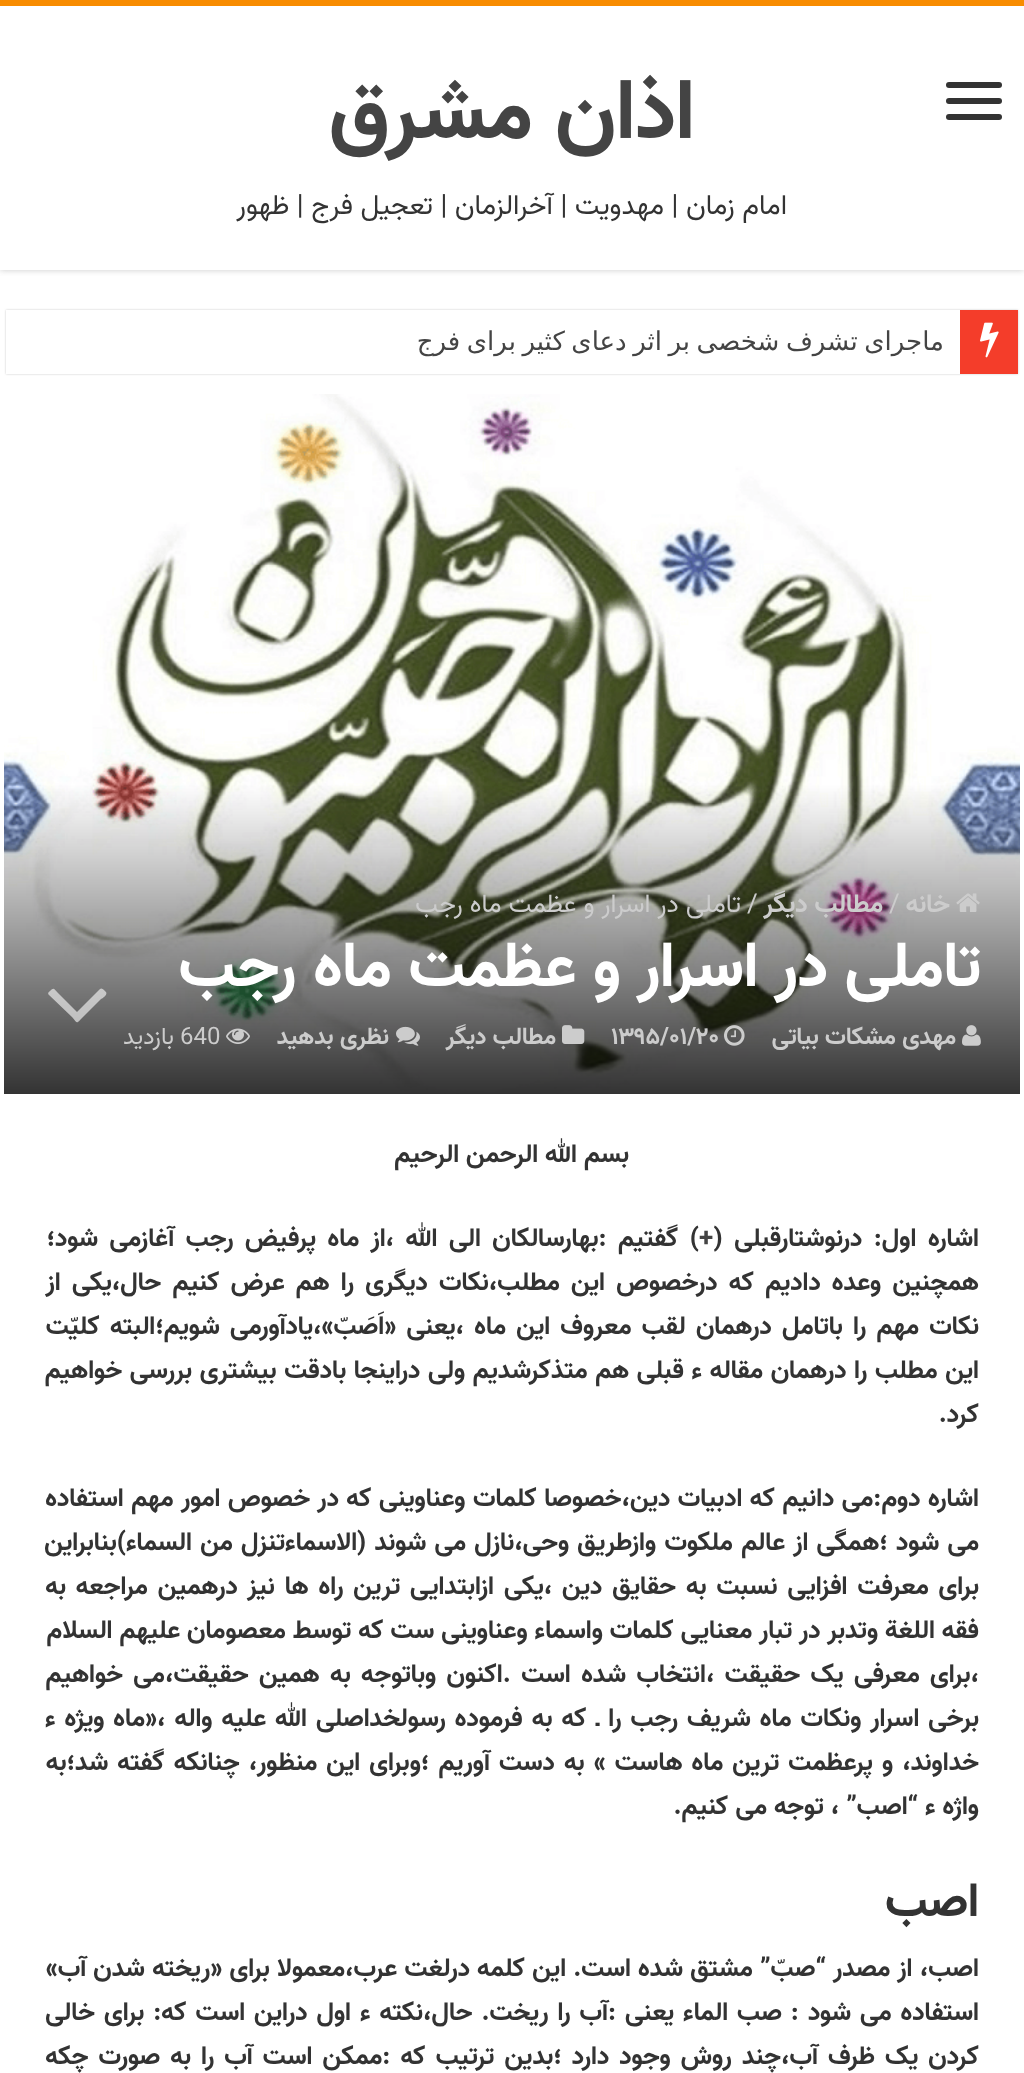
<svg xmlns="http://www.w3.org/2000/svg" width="1024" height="2073">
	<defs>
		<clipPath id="clip1"><rect x="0" y="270" width="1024" height="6" /></clipPath>
		<clipPath id="clip2"><path d="M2 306H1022V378H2ZM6 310H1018V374H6Z" clip-rule="evenodd" /></clipPath>
	</defs>
	<rect width="100%" height="100%" fill="#FFFFFF" />
	<g clip-path="url(#clip1)">
		<rect x="0" y="0" width="1024" height="270" fill="#CACACA" filter="blur(3px)" />
	</g>
	<rect x="0" y="0" width="1024" height="6" fill="#F88C00" />
	<rect x="946" y="82" width="56" height="6" rx="3" fill="#333333" />
	<rect x="946" y="98" width="56" height="6" rx="3" fill="#333333" />
	<rect x="946" y="114" width="56" height="6" rx="3" fill="#333333" />
	<text x="695" y="138" font-family="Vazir" font-size="85.5" font-weight="700" direction="rtl" fill="#444444">اذان مشرق</text>
	<text x="787" y="214" font-family="Vazir" font-size="28" direction="rtl" fill="#333333">امام زمان | مهدویت | آخرالزمان | تعجیل فرج | ظهور</text>
	<g clip-path="url(#clip2)">
		<rect x="6" y="310" width="1012" height="64" fill="#CACACA" filter="blur(1px)" />
	</g>
	<rect x="960" y="310" width="58" height="64" fill="#F43D2A" />
	<image x="980" y="322" width="19" height="36" href="assets/img1.png" />
	<text x="944" y="350" word-spacing="-1.75" font-family="DejaVu Sans" font-size="26" direction="rtl" fill="#444444">ماجرای تشرف شخصی بر اثر دعای کثیر برای فرج</text>
	<image x="4" y="394" width="1016" height="700" href="assets/img2.png" />
	<image x="956" y="893" width="24" height="19" href="assets/img3.png" />
	<text x="950" y="912" font-family="Vazir" font-size="26" font-weight="700" direction="rtl" fill="#CCCCCC">خانه</text>
	<text x="889" y="912" font-family="Vazir" font-size="26" fill="#CCCCCC">/</text>
	<text x="883" y="912" font-family="Vazir" font-size="26" font-weight="700" direction="rtl" fill="#CCCCCC">مطالب دیگر</text>
	<text x="747" y="912" font-family="Vazir" font-size="26" fill="#CCCCCC">/</text>
	<text x="741" y="912" font-family="Vazir" font-size="26" direction="rtl" fill="#CCCCCC">تاملی در اسرار و عظمت ماه رجب</text>
	<text x="981" y="986" font-family="Vazir" font-size="64" font-weight="700" direction="rtl" fill="#FFFFFF">تاملی در اسرار و عظمت ماه رجب</text>
	<image x="962" y="1025" width="19" height="21" href="assets/img4.png" />
	<text x="956" y="1044" font-family="Vazir" font-size="24" font-weight="700" direction="rtl" fill="#CCCCCC">مهدی مشکات بیاتی</text>
	<image x="724" y="1025" width="21" height="21" href="assets/img5.png" />
	<text x="611" y="1044" font-family="Vazir" font-size="24" font-weight="700" fill="#CCCCCC">۱۳۹۵/۰۱/۲۰</text>
	<image x="562" y="1025" width="23" height="19" href="assets/img6.png" />
	<text x="556" y="1044" font-family="Vazir" font-size="24" font-weight="700" direction="rtl" fill="#CCCCCC">مطالب دیگر</text>
	<image x="396" y="1026" width="24" height="20" href="assets/img7.png" />
	<text x="389" y="1044" font-family="Vazir" font-size="24" font-weight="700" direction="rtl" fill="#CCCCCC">نظری بدهید</text>
	<image x="226" y="1028" width="24" height="16" href="assets/img8.png" />
	<text x="180" y="1044" font-family="Vazir" font-size="24" fill="#CCCCCC">640</text>
	<text x="174" y="1044" font-family="Vazir" font-size="24" direction="rtl" fill="#CCCCCC">بازدید</text>
	<path d="M106 992C108 995 102 999 101 999L83 1017C76 1024 78 1024 72 1017L49 995C47 993 49 992 50 991C54 987 54 989 58 993L77 1012L100 989C102 987 105 991 106 992Z" fill="#FFFFFF" fill-opacity="0.6" />
	<g font-family="Vazir" font-size="26" font-weight="700" direction="rtl" fill="#333333">
		<text x="629" y="1162">بسم الله الرحمن الرحیم</text>
		<text x="979" y="1246" word-spacing="4.5">اشاره اول: درنوشتارقبلی (</text>
	</g>
	<text x="699" y="1246" font-family="Vazir" font-size="26" font-weight="700" fill="#444444">+</text>
	<g font-family="Vazir" font-size="26" font-weight="700" direction="rtl" fill="#333333">
		<text x="699" y="1246" word-spacing="4.5">) گفتیم :بهارسالکان الی الله ،از ماه پرفیض رجب آغازمی شود؛</text>
		<text x="979" y="1290" word-spacing="4.25">همچنین وعده دادیم که درخصوص این مطلب،نکات دیگری را هم عرض کنیم حال،یکی از</text>
		<text x="979" y="1334" word-spacing="3.25">نکات مهم را باتامل درهمان لقب معروف این ماه ،یعنی «اَصَبّ»،یادآورمی شویم؛البته کلیّت</text>
		<text x="979" y="1378" word-spacing="0.7">این مطلب را درهمان مقاله ء قبلی هم متذکرشدیم ولی دراینجا بادقت بیشتری بررسی خواهیم</text>
		<text x="979" y="1422">کرد.</text>
		<text x="979" y="1506" word-spacing="0.5">اشاره دوم:می دانیم که ادبیات دین،خصوصا کلمات وعناوینی که در خصوص امور مهم استفاده</text>
		<text x="979" y="1550" word-spacing="1.25">می شود ؛همگی از عالم ملکوت وازطریق وحی،نازل می شوند (الاسماءتنزل من السماء)بنابراین</text>
		<text x="979" y="1594" word-spacing="2.9">برای معرفت افزایی نسبت به حقایق دین ،یکی ازابتدایی ترین راه ها نیز درهمین مراجعه به</text>
		<text x="979" y="1638">فقه اللغة وتدبر در تبار معنایی کلمات واسماء وعناوینی ست که توسط معصومان علیهم السلام</text>
		<text x="979" y="1682" word-spacing="3.4">،برای معرفی یک حقیقت ،انتخاب شده است .اکنون وباتوجه به همین حقیقت،می خواهیم</text>
		<text x="979" y="1726" word-spacing="2">برخی اسرار ونکات ماه شریف رجب را ـ که به فرموده رسولخداصلی الله علیه واله ،«ماه ویژه ء</text>
		<text x="979" y="1770" word-spacing="2.1">خداوند، و پرعظمت ترین ماه هاست » به دست آوریم ؛وبرای این منظور، چنانکه گفته شد؛به</text>
		<text x="979" y="1814">واژه ء “اصب” ، توجه می کنیم.</text>
	</g>
	<text x="979" y="1916" font-family="Vazir" font-size="48" font-weight="700" direction="rtl" fill="#333333">اصب</text>
	<g font-family="Vazir" font-size="26" font-weight="700" direction="rtl" fill="#333333">
		<text x="979" y="1976" word-spacing="0.25">اصب، از مصدر “صبّ” مشتق شده است. این کلمه درلغت عرب،معمولا برای «ریخته شدن آب»</text>
		<text x="979" y="2020" word-spacing="2">استفاده می شود : صب الماء یعنی :آب را ریخت. حال،نکته ء اول دراین است که: برای خالی</text>
		<text x="979" y="2064" word-spacing="3.1">کردن یک ظرف آب،چند روش وجود دارد ؛بدین ترتیب که :ممکن است آب را به صورت چکه</text>
	</g>
</svg>
